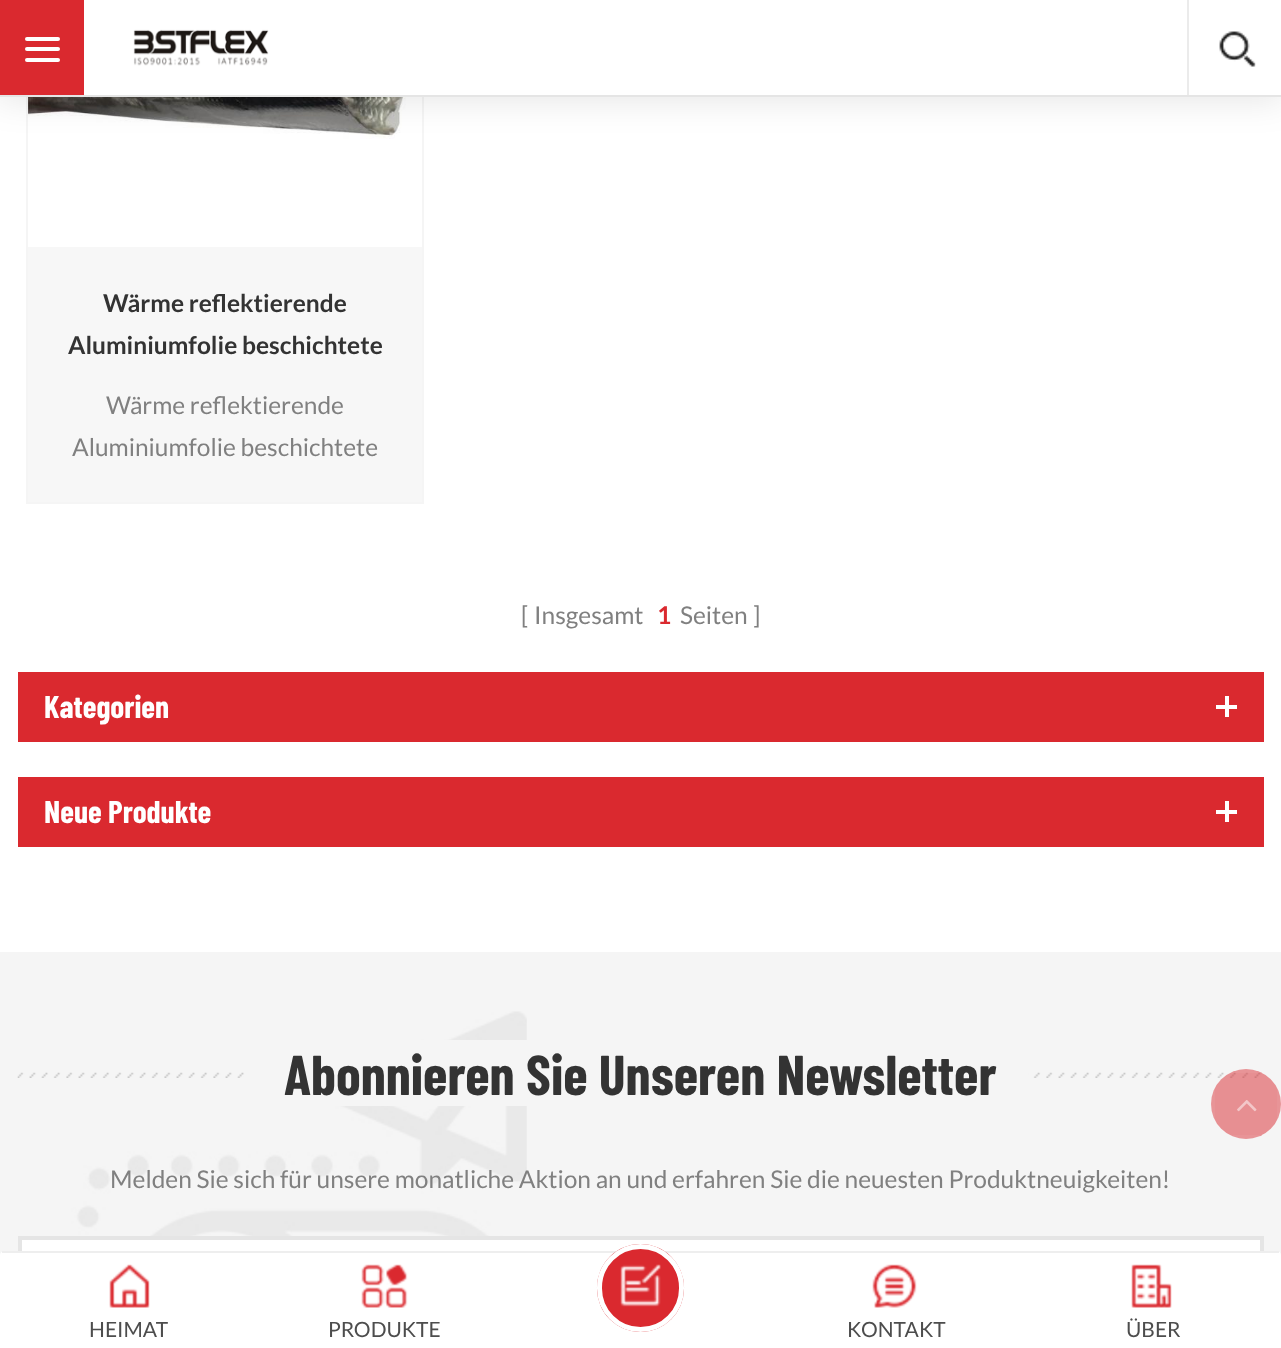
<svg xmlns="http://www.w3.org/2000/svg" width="1281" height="1348">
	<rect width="100%" height="100%" fill="#FFFFFF" />
	<rect x="27" y="-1" width="396" height="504" fill="none" stroke="#F5F5F5" stroke-width="2" />
	<image x="28" y="97" width="378" height="42" href="assets/img3.png" />
	<rect x="-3" y="-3" width="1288" height="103" fill="#000000" fill-opacity="0.1" filter="blur(17.5px)" />
	<rect x="84" y="0" width="1197" height="95" fill="#FFFFFF" />
	<rect x="0" y="95" width="1281" height="2" fill="#E5E5E5" />
	<rect x="0" y="0" width="84" height="95" fill="#DA292F" />
	<rect x="25" y="47" width="35" height="4" rx="2" fill="#FFFFFF" />
	<rect x="25" y="37" width="35" height="4" rx="2" fill="#FFFFFF" />
	<rect x="25" y="58" width="35" height="4" rx="2" fill="#FFFFFF" />
	<image x="133" y="29" width="136" height="37" href="assets/img1.png" />
	<rect x="1187" y="0" width="2" height="95" fill="#EBEBEB" />
	<image x="1219" y="31" width="37" height="36" href="assets/img2.png" />
	<rect x="28" y="247" width="394" height="255" fill="#F7F7F7" />
	<g font-family="Lato" font-size="24.5" font-weight="700" fill="#333333">
		<text x="103" y="312">Wärme reflektierende</text>
		<text x="68" y="354">Aluminiumfolie beschichtete</text>
	</g>
	<g font-family="Lato" font-size="24.5" fill="#808080">
		<text x="106" y="414">Wärme reflektierende</text>
		<text x="72" y="456">Aluminiumfolie beschichtete</text>
		<text x="521" y="624">[</text>
		<text x="534" y="624">Insgesamt</text>
	</g>
	<text x="657" y="624" font-family="Lato" font-size="24.5" font-weight="700" fill="#DA292F">1</text>
	<g font-family="Lato" font-size="24.5" fill="#808080">
		<text x="680" y="624">Seiten</text>
		<text x="753" y="624">]</text>
	</g>
	<rect x="18" y="672" width="1246" height="70" fill="#DA292F" />
	<text x="44" y="718" font-family="Barlow Condensed" font-size="31.5" font-weight="700" fill="#FFFFFF">Kategorien</text>
	<rect x="1216" y="705" width="21" height="4" fill="#FFFFFF" />
	<rect x="1225" y="696" width="4" height="21" fill="#FFFFFF" />
	<rect x="18" y="777" width="1246" height="70" fill="#DA292F" />
	<text x="44" y="823" font-family="Barlow Condensed" font-size="31.5" font-weight="700" fill="#FFFFFF">Neue Produkte</text>
	<rect x="1216" y="810" width="21" height="4" fill="#FFFFFF" />
	<rect x="1225" y="801" width="4" height="21" fill="#FFFFFF" />
	<rect x="0" y="952" width="1281" height="303" fill="#F5F5F5" />
	<image x="23" y="1011" width="504" height="225" href="assets/img4.png" />
	<image x="17" y="1072" width="1244" height="6" href="assets/img5.png" />
	<rect x="249" y="1040" width="779" height="66" fill="#F5F5F5" />
	<text x="284" y="1095" font-family="Barlow Condensed" font-size="56" font-weight="700" fill="#333333">Abonnieren Sie Unseren Newsletter</text>
	<text x="110" y="1188" font-family="Lato" font-size="24.5" fill="#808080">Melden Sie sich für unsere monatliche Aktion an und erfahren Sie die neuesten Produktneuigkeiten!</text>
	<rect x="22" y="1240" width="1238" height="11" fill="#FFFFFF" />
	<rect x="20" y="1238" width="1242" height="101" fill="none" stroke="#E5E5E5" stroke-width="4" />
	<circle cx="1246" cy="1104" r="35" fill="#DA292F" fill-opacity="0.5" />
	<rect x="1213" y="1071" width="66" height="66" fill="none" stroke="#FFFFFF" stroke-opacity="0.05" stroke-width="4" />
	<image x="1237" y="1100" width="20" height="12" href="assets/img6.png" />
	<path d="M4 1251H1277C1279 1251 1281 1253 1281 1255V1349H0V1255C0 1253 2 1251 4 1251Z" fill="#FFFFFF" />
	<rect x="2" y="1251" width="1277" height="2" fill="#EEEEEE" />
	<rect x="597" y="1244" width="87" height="88" rx="43.5" fill="#DA292F" />
	<image x="620" y="1264" width="41" height="43" href="assets/img7.png" />
	<rect x="599.5" y="1246.5" width="82" height="83" rx="41" fill="none" stroke="#FFFFFF" stroke-width="5" />
	<image x="109" y="1264" width="41" height="44" href="assets/img8.png" />
	<text x="89" y="1337" font-family="Lato" font-size="21" fill="#4D4D4D">HEIMAT</text>
	<image x="361" y="1264" width="47" height="44" href="assets/img9.png" />
	<text x="328" y="1337" font-family="Lato" font-size="21" fill="#4D4D4D">PRODUKTE</text>
	<image x="872" y="1264" width="45" height="44" href="assets/img10.png" />
	<text x="847" y="1337" font-family="Lato" font-size="21" fill="#4D4D4D">KONTAKT</text>
	<image x="1131" y="1264" width="41" height="44" href="assets/img11.png" />
	<text x="1126" y="1337" font-family="Lato" font-size="21" fill="#4D4D4D">ÜBER</text>
</svg>
